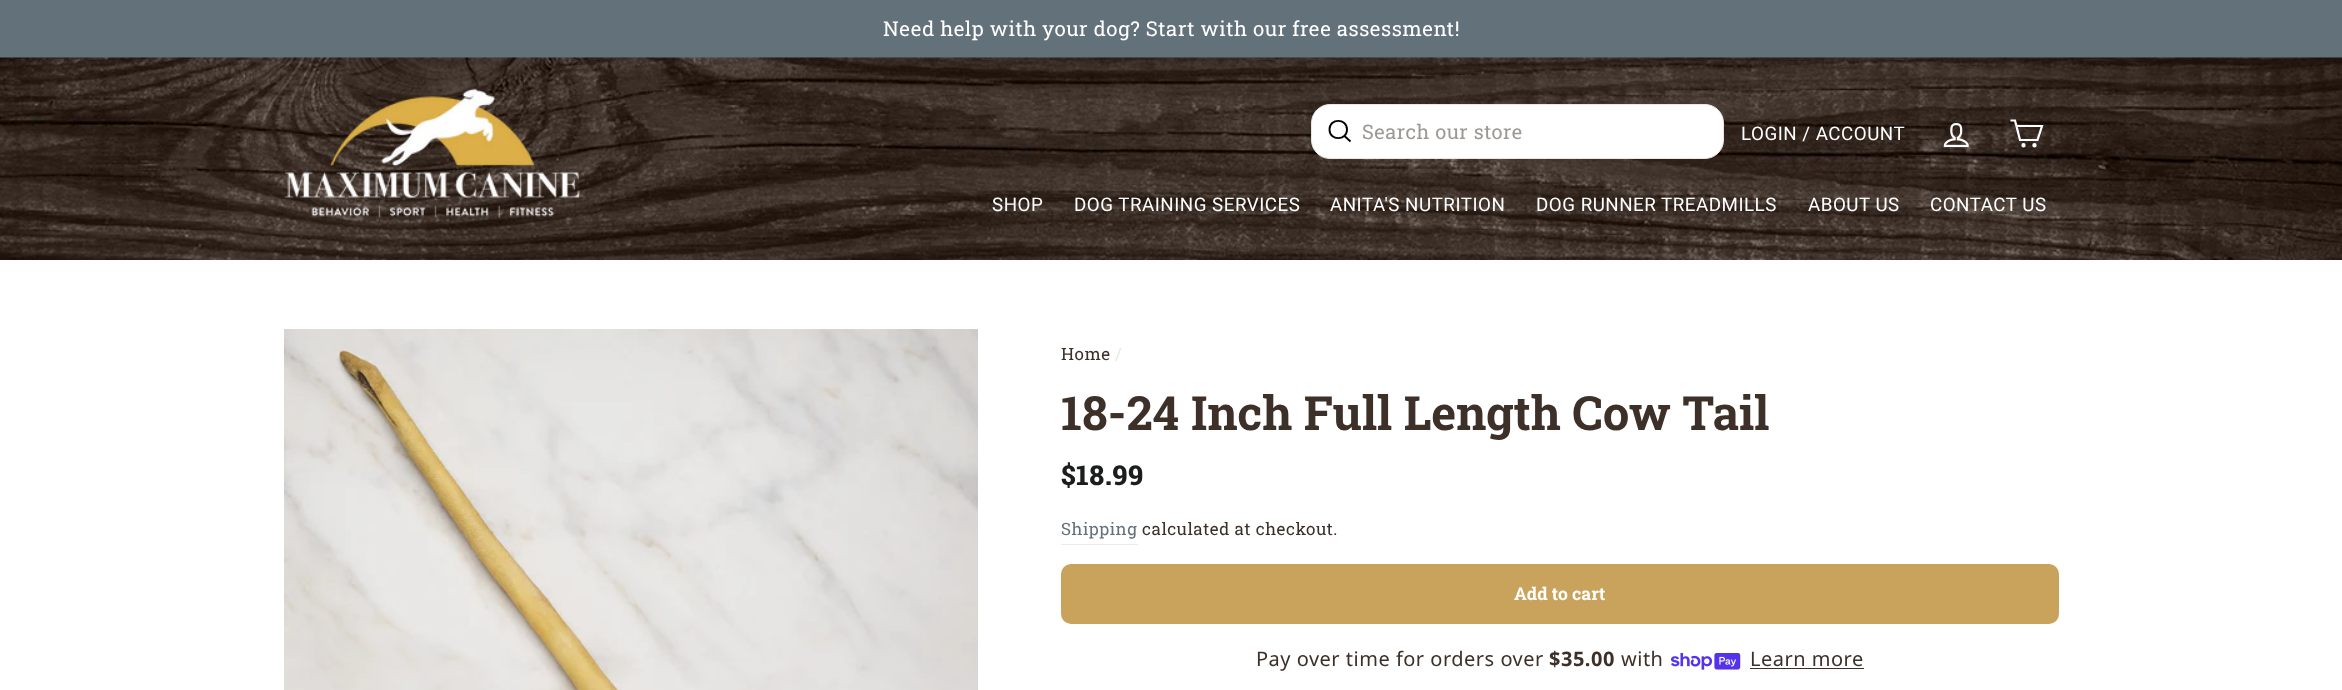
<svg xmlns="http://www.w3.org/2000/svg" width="2342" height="690">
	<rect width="100%" height="100%" fill="#FFFFFF" />
	<rect x="0" y="0" width="2342" height="58" fill="#63717B" />
	<text x="883" y="36" font-family="Roboto Slab" font-size="20.4" letter-spacing="0.5" fill="#FFFFFF">Need help with your dog? Start with our free assessment!</text>
	<rect x="0" y="58" width="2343" height="202" fill="#000000" fill-opacity="0.2" filter="blur(0.5px)" />
	<image x="0" y="57" width="2342" height="203" href="assets/img1.png" />
	<image x="284" y="88" width="297" height="130" href="assets/img2.png" />
	<rect x="1311.5" y="104.5" width="412" height="54" rx="18.5" fill="#FFFFFF" stroke="#E8E8E1" />
	<path d="M1347 129.5C1347 141 1329.5 141 1329.5 129.5C1329.5 118 1347 118 1347 129.5ZM1350.5 141.5L1344.5 136" fill="none" stroke="#000000" stroke-width="1.9" />
	<text x="1362" y="139" font-family="Roboto Slab" font-size="20" letter-spacing="0.5" fill="#9E9894">Search our store</text>
	<text x="1741" y="140" font-family="Roboto" font-size="18.75" letter-spacing="0.5" fill="#FFFFFF">LOGIN / ACCOUNT</text>
	<image x="1943" y="123" width="26" height="25" href="assets/img3.png" />
	<path d="M2016.5 126H2042L2037.5 140H2020L2015 120.5H2010.5" fill="none" stroke="#FFFFFF" stroke-width="2.2" />
	<circle cx="2023.5" cy="145.2" r="1.1" fill="none" stroke="#FFFFFF" stroke-width="2.2" />
	<circle cx="2034.5" cy="145.2" r="1.1" fill="none" stroke="#FFFFFF" stroke-width="2.2" />
	<g font-family="Roboto" font-size="18.75" letter-spacing="0.5" fill="#FFFFFF">
		<text x="992" y="211">SHOP</text>
		<text x="1074" y="211">DOG TRAINING SERVICES</text>
		<text x="1330" y="211">ANITA'S NUTRITION</text>
		<text x="1536" y="211">DOG RUNNER TREADMILLS</text>
		<text x="1808" y="211">ABOUT US</text>
		<text x="1930" y="211">CONTACT US</text>
	</g>
	<image x="284" y="329" width="694" height="361" href="assets/img4.png" />
	<text x="1061" y="360" font-family="Roboto Slab" font-size="17" letter-spacing="0.5" fill="#3D3029">Home</text>
	<text x="1115" y="360" font-family="Roboto Slab" font-size="17" letter-spacing="0.5" fill="#E8E8E1">/</text>
	<text x="1061" y="430" font-family="Roboto Slab" font-size="47.25" font-weight="700" fill="#3D3029">18-24 Inch Full Length Cow Tail</text>
	<text x="1061" y="485" font-family="Roboto Slab" font-size="27.5" font-weight="800" letter-spacing="0.5" fill="#1C1D1D">$18.99</text>
	<rect x="1061" y="544" width="77" height="1" fill="#E8EAEB" />
	<text x="1061" y="535" font-family="Roboto Slab" font-size="17" letter-spacing="0.5" fill="#63717B">Shipping</text>
	<text x="1142" y="535" font-family="Roboto Slab" font-size="17" letter-spacing="0.5" fill="#3D3029">calculated at checkout.</text>
	<rect x="1061" y="564" width="998" height="60" rx="10" fill="#C9A35C" />
	<text x="1514" y="600" font-family="Roboto Slab" font-size="17.5" font-weight="700" fill="#FFFFFF">Add to cart</text>
	<text x="1256" y="666" font-family="Noto Sans" font-size="20" letter-spacing="0.5" fill="#3D3029">Pay over time for orders over</text>
	<text x="1549" y="666" font-family="Noto Sans" font-size="20" font-weight="700" letter-spacing="0.5" fill="#3D3029">$35.00</text>
	<text x="1621" y="666" font-family="Noto Sans" font-size="20" letter-spacing="0.5" fill="#3D3029">with</text>
	<image x="1671" y="653" width="70" height="17" href="assets/img5.png" />
	<text x="1750" y="666" font-family="Noto Sans" font-size="20" letter-spacing="0.5" fill="#3D3029">Learn more</text>
	<rect x="1750" y="668" width="114" height="1" fill="#3D3029" />
</svg>
